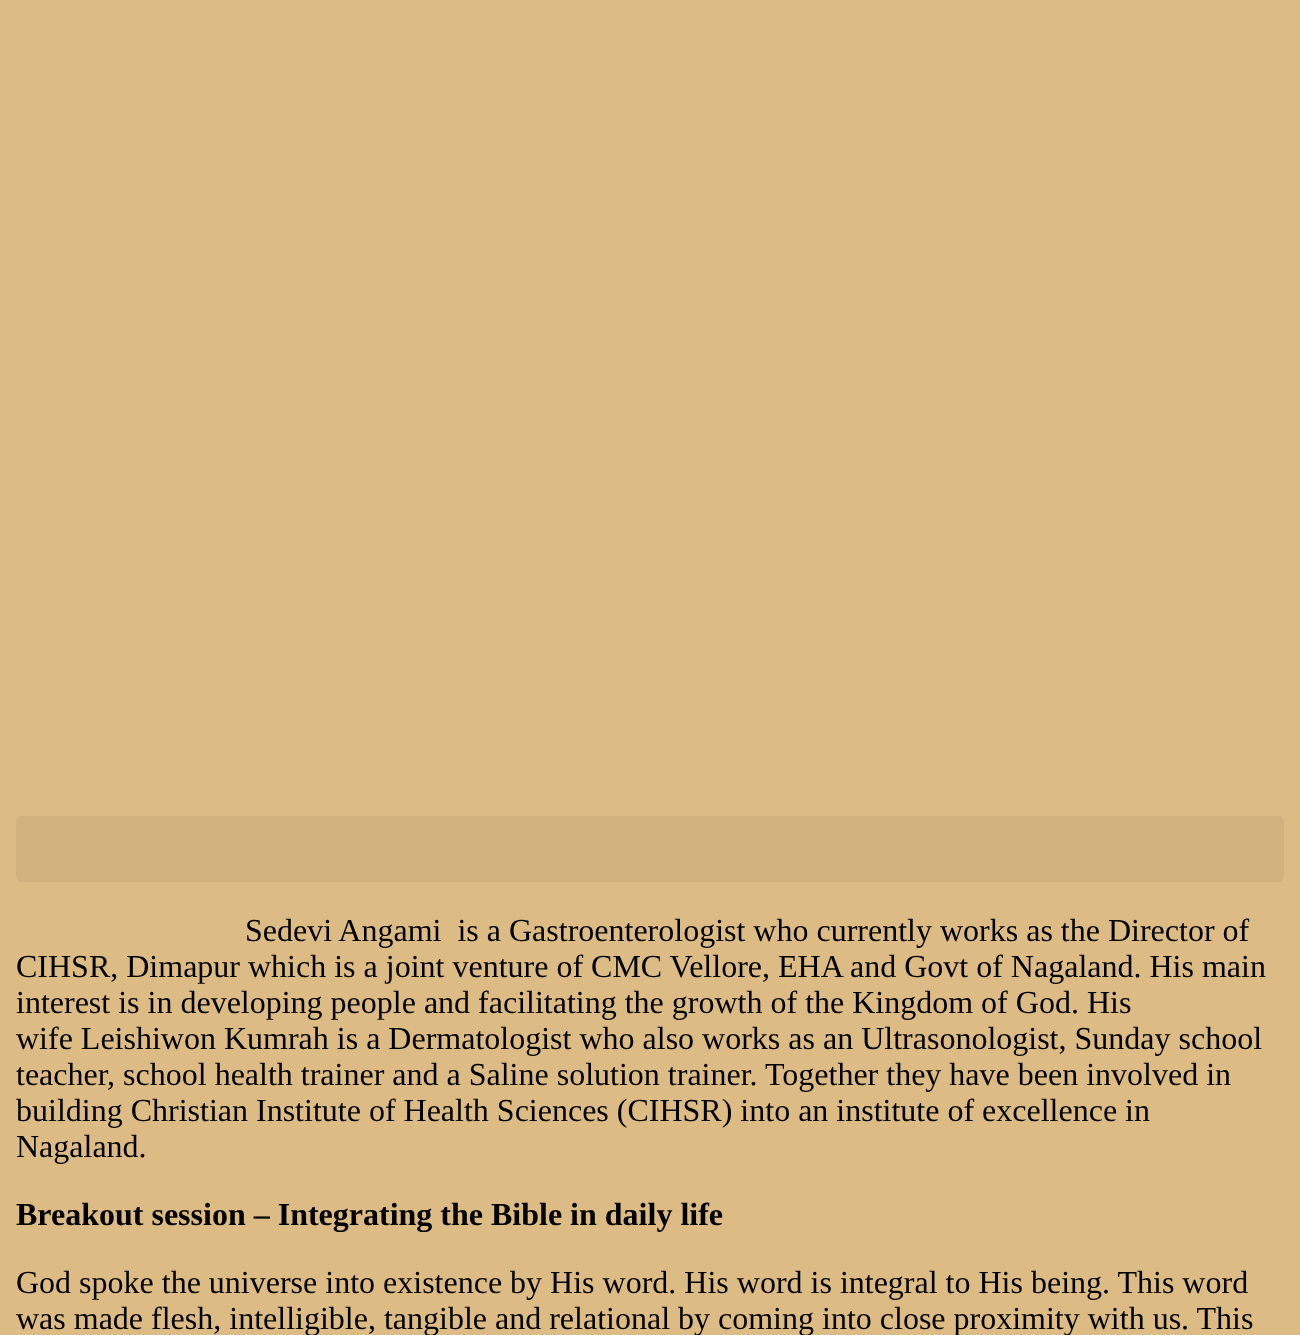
<svg xmlns="http://www.w3.org/2000/svg" width="1300" height="1335">
	<rect width="100%" height="100%" fill="#DDBB85" />
	<rect x="16" y="816" width="1268" height="66" rx="6" fill="#D2B27E" />
	<g font-family="Liberation Serif" font-size="32" fill="#000000">
		<text x="245" y="941" xml:space="preserve">Sedevi Angami  is a Gastroenterologist who currently works as the Director of</text>
		<text x="16" y="977">CIHSR, Dimapur which is a joint venture of CMC Vellore, EHA and Govt of Nagaland. His main</text>
		<text x="16" y="1013">interest is in developing people and facilitating the growth of the Kingdom of God. His</text>
		<text x="16" y="1049">wife Leishiwon Kumrah is a Dermatologist who also works as an Ultrasonologist, Sunday school</text>
		<text x="16" y="1085">teacher, school health trainer and a Saline solution trainer. Together they have been involved in</text>
		<text x="16" y="1121">building Christian Institute of Health Sciences (CIHSR) into an institute of excellence in</text>
		<text x="16" y="1157">Nagaland.</text>
	</g>
	<text x="16" y="1225" font-family="Liberation Serif" font-size="32" font-weight="700" fill="#000000">Breakout session – Integrating the Bible in daily life</text>
	<g font-family="Liberation Serif" font-size="32" fill="#000000">
		<text x="16" y="1293">God spoke the universe into existence by His word. His word is integral to His being. This word</text>
		<text x="16" y="1329">was made flesh, intelligible, tangible and relational by coming into close proximity with us. This</text>
	</g>
</svg>
